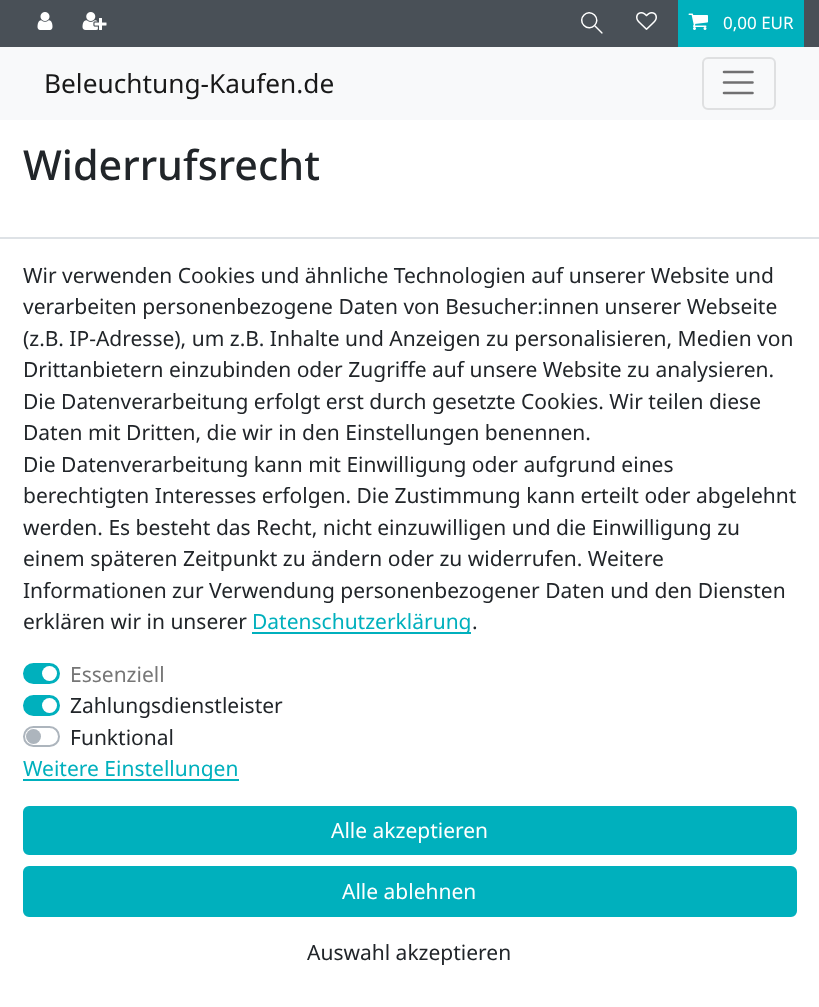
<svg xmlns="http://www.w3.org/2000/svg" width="819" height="1007">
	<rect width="100%" height="100%" fill="#FFFFFF" />
	<rect x="0" y="0" width="819" height="47" fill="#495057" />
	<image x="37" y="12" width="16" height="18" href="assets/img1.png" />
	<image x="82" y="12" width="25" height="18" href="assets/img2.png" />
	<path d="M601.5 33.5L586.5 18.5V18C586.5 17.5 587 17.5 587.5 17.5L602.5 32.5C603 33.5 602 34 601.5 33.5Z" fill="#FFFFFF" />
	<path d="M583.5 26C576 18.5 587.5 7 595 14.5C602.5 22 591 34 583.5 26Z" fill="#495057" />
	<path d="M584 25.5C577 18.5 587.5 8 594.5 15C601.5 22 591 32.5 584 25.5Z" fill="none" stroke="#FFFFFF" stroke-width="1.5" />
	<image x="636" y="12" width="21" height="18" href="assets/img3.png" />
	<rect x="678" y="0" width="126" height="47" fill="#00B0BD" />
	<image x="688" y="13" width="20" height="17" href="assets/img4.png" />
	<text x="723" y="29" font-family="Noto Sans" font-size="17" fill="#FFFFFF">0,00 EUR</text>
	<rect x="0" y="47" width="819" height="73" fill="#F8F9FA" />
	<text x="44" y="93" font-family="Noto Sans" font-size="26.25" fill="#191919">Beleuchtung-Kaufen.de</text>
	<rect x="703" y="58" width="72" height="51" rx="5" fill="none" stroke="#DFE0E1" stroke-width="2" />
	<path d="M724 72H752.5M724 82.5H752.5M724 93H752.5" fill="none" stroke="#707071" stroke-width="2.6" stroke-linecap="round" />
	<text x="23" y="180" font-family="Noto Sans" font-size="41.25" font-weight="500" fill="#212529">Widerrufsrecht</text>
	<rect x="0" y="237" width="819" height="2" fill="#DEE2E6" />
	<g font-family="Noto Sans" font-size="21" fill="#212529">
		<text x="23" y="283">Wir verwenden Cookies und ähnliche Technologien auf unserer Website und</text>
		<text x="23" y="314">verarbeiten personenbezogene Daten von Besucher:innen unserer Webseite</text>
		<text x="23" y="346">(z.B. IP-Adresse), um z.B. Inhalte und Anzeigen zu personalisieren, Medien von</text>
		<text x="23" y="377">Drittanbietern einzubinden oder Zugriffe auf unsere Website zu analysieren.</text>
		<text x="23" y="409">Die Datenverarbeitung erfolgt erst durch gesetzte Cookies. Wir teilen diese</text>
		<text x="23" y="440">Daten mit Dritten, die wir in den Einstellungen benennen.</text>
		<text x="23" y="472">Die Datenverarbeitung kann mit Einwilligung oder aufgrund eines</text>
		<text x="23" y="503">berechtigten Interesses erfolgen. Die Zustimmung kann erteilt oder abgelehnt</text>
		<text x="23" y="535">werden. Es besteht das Recht, nicht einzuwilligen und die Einwilligung zu</text>
		<text x="23" y="566">einem späteren Zeitpunkt zu ändern oder zu widerrufen. Weitere</text>
		<text x="23" y="598">Informationen zur Verwendung personenbezogener Daten und den Diensten</text>
		<text x="23" y="629">erklären wir in unserer</text>
	</g>
	<rect x="252" y="632" width="219" height="2" fill="#00B0BD" />
	<text x="252" y="629" font-family="Noto Sans" font-size="21" fill="#00B0BD">Datenschutzerklärung</text>
	<text x="472" y="629" font-family="Noto Sans" font-size="21" fill="#212529">.</text>
	<rect x="24" y="664" width="35" height="19" rx="9.5" fill="#00B0BD" stroke="#00B0BD" stroke-width="2" />
	<circle cx="49.5" cy="673.5" r="7.5" fill="#FFFFFF" />
	<text x="70" y="682" font-family="Noto Sans" font-size="21" fill="#767676">Essenziell</text>
	<rect x="24" y="696" width="35" height="19" rx="9.5" fill="#00B0BD" stroke="#00B0BD" stroke-width="2" />
	<text x="70" y="713" font-family="Noto Sans" font-size="21" fill="#212529">Zahlungsdienstleister</text>
	<circle cx="49.5" cy="705.5" r="7.5" fill="#FFFFFF" />
	<rect x="24" y="727" width="35" height="19" rx="9.5" fill="none" stroke="#ADB5BD" stroke-width="2" />
	<circle cx="33.5" cy="736.5" r="7.5" fill="#ADB5BD" />
	<text x="70" y="745" font-family="Noto Sans" font-size="21" fill="#212529">Funktional</text>
	<rect x="23" y="779" width="216" height="2" fill="#00B0BD" />
	<text x="23" y="776" font-family="Noto Sans" font-size="21" fill="#00B0BD">Weitere Einstellungen</text>
	<rect x="24" y="807" width="772" height="47" rx="5" fill="#00B0BD" stroke="#00B0BD" stroke-width="2" />
	<text x="331" y="838" font-family="Noto Sans" font-size="21" fill="#FFFFFF">Alle akzeptieren</text>
	<rect x="24" y="867" width="772" height="49" rx="5" fill="#00B0BD" stroke="#00B0BD" stroke-width="2" />
	<text x="342" y="899" font-family="Noto Sans" font-size="21" fill="#FFFFFF">Alle ablehnen</text>
	<text x="307" y="960" font-family="Noto Sans" font-size="21" fill="#212529">Auswahl akzeptieren</text>
</svg>
